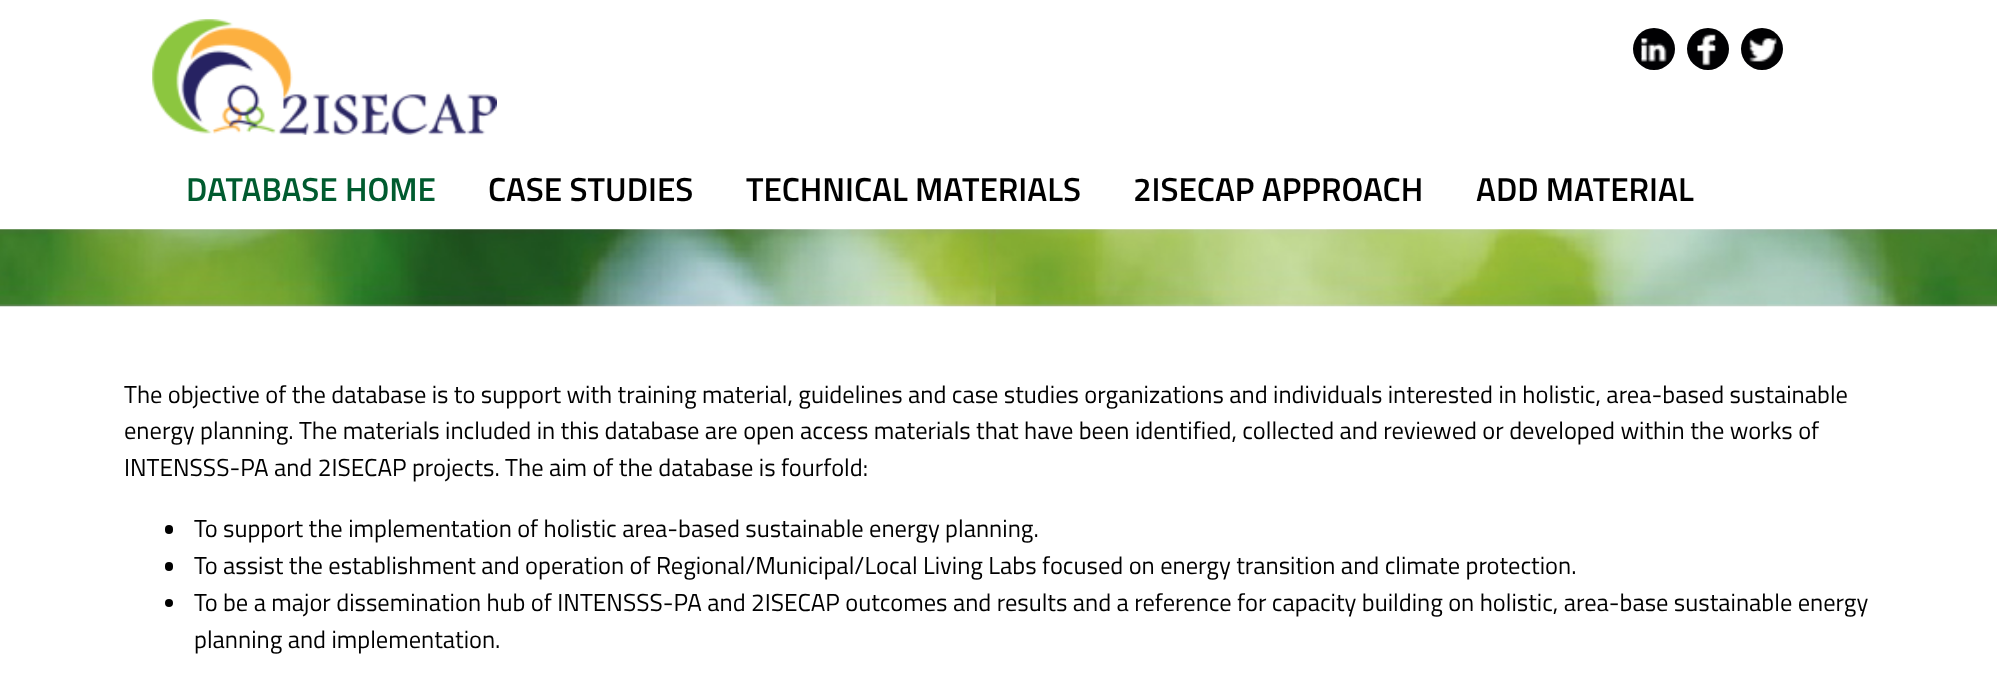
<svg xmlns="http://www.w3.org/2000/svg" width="1997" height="688">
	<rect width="100%" height="100%" fill="#FFFFFF" />
	<image x="152" y="19" width="345" height="116" href="assets/img1.png" />
	<circle cx="1654" cy="49" r="21" fill="#010103" />
	<image x="1641" y="38" width="26" height="24" href="assets/img2.png" />
	<circle cx="1708" cy="49" r="21" fill="#010103" />
	<image x="1697" y="34" width="19" height="32" href="assets/img3.png" />
	<circle cx="1762" cy="49" r="21" fill="#010103" />
	<image x="1749" y="38" width="28" height="24" href="assets/img4.png" />
	<text x="186" y="201" font-family="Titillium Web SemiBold" font-size="33.25" font-weight="600" fill="#005B2F">DATABASE HOME</text>
	<g font-family="Titillium Web SemiBold" font-size="33.25" font-weight="600" fill="#000000">
		<text x="488" y="201">CASE STUDIES</text>
		<text x="746" y="201">TECHNICAL MATERIALS</text>
		<text x="1133" y="201">2ISECAP APPROACH</text>
		<text x="1476" y="201">ADD MATERIAL</text>
	</g>
	<image x="0" y="229" width="1997" height="78" href="assets/img5.png" />
	<g font-family="Titillium Web" font-size="24.5" fill="#000000">
		<text x="124" y="403">The objective of the database is to support with training material, guidelines and case studies organizations and individuals interested in holistic, area-based sustainable</text>
		<text x="124" y="439">energy planning. The materials included in this database are open access materials that have been identified, collected and reviewed or developed within the works of</text>
		<text x="124" y="476">INTENSSS-PA and 2ISECAP projects. The aim of the database is fourfold:</text>
	</g>
	<rect x="165" y="525" width="8" height="9" rx="4" fill="#000000" />
	<text x="194" y="537" font-family="Titillium Web" font-size="24.5" fill="#000000">To support the implementation of holistic area-based sustainable energy planning.</text>
	<rect x="165" y="562" width="8" height="9" rx="4" fill="#000000" />
	<text x="194" y="574" font-family="Titillium Web" font-size="24.5" fill="#000000">To assist the establishment and operation of Regional/Municipal/Local Living Labs focused on energy transition and climate protection.</text>
	<circle cx="169" cy="603" r="4" fill="#000000" />
	<g font-family="Titillium Web" font-size="24.5" fill="#000000">
		<text x="194" y="611">To be a major dissemination hub of INTENSSS-PA and 2ISECAP outcomes and results and a reference for capacity building on holistic, area-base sustainable energy</text>
		<text x="194" y="648">planning and implementation.</text>
	</g>
</svg>
